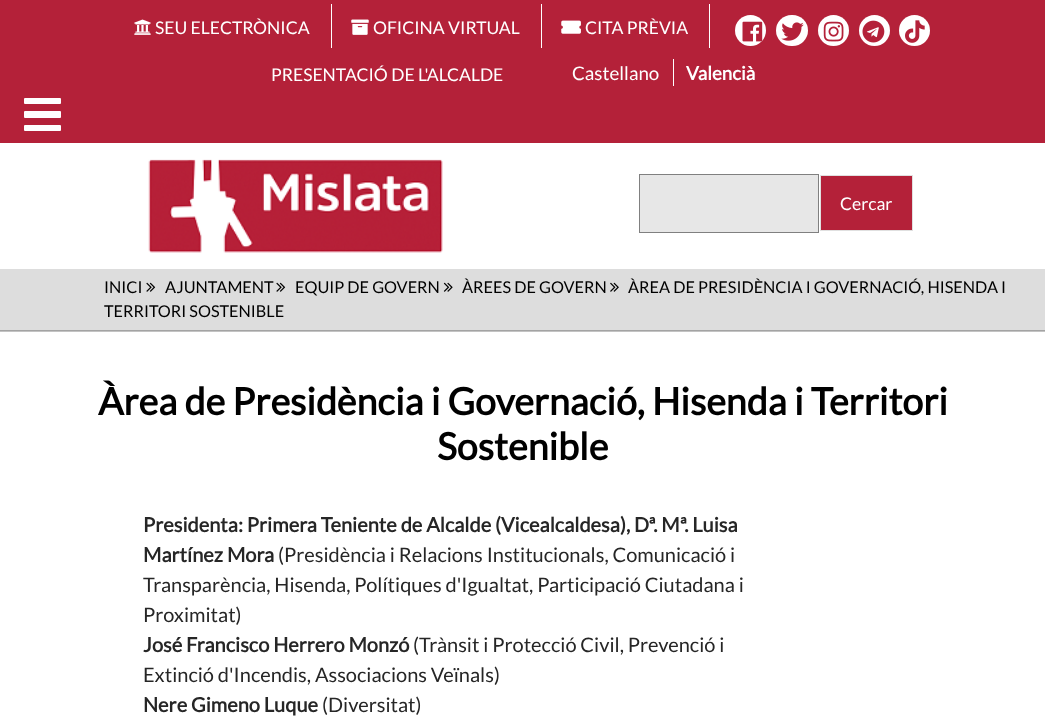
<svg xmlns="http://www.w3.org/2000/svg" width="1045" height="722">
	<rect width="100%" height="100%" fill="#FFFFFF" />
	<rect x="0" y="330" width="1045" height="1" fill="#A3A3A3" />
	<rect x="0" y="0" width="1045" height="86" fill="#B42139" />
	<rect x="331" y="4" width="1" height="44" fill="#FFFFFF" />
	<image x="134" y="19" width="17" height="16" href="assets/img1.png" />
	<text x="155" y="34" font-family="Lato" font-size="17.5" fill="#FFFFFF">SEU ELECTRÒNICA</text>
	<rect x="541" y="4" width="1" height="44" fill="#FFFFFF" />
	<image x="351" y="19" width="18" height="16" href="assets/img2.png" />
	<text x="373" y="34" font-family="Lato" font-size="17.5" fill="#FFFFFF">OFICINA VIRTUAL</text>
	<rect x="709" y="4" width="1" height="44" fill="#FFFFFF" />
	<image x="561" y="20" width="20" height="14" href="assets/img3.png" />
	<text x="585" y="34" font-family="Lato" font-size="17.5" fill="#FFFFFF">CITA PRÈVIA</text>
	<circle cx="750.5" cy="30.5" r="15.5" fill="#FFFFFF" />
	<image x="742" y="21" width="21" height="21" href="assets/img4.png" />
	<rect x="776" y="15" width="32" height="31" rx="15.5" fill="#FFFFFF" />
	<image x="781" y="22" width="23" height="19" href="assets/img5.png" />
	<circle cx="833.5" cy="30.5" r="15.5" fill="#FFFFFF" />
	<image x="823" y="21" width="21" height="21" href="assets/img6.png" />
	<circle cx="874.5" cy="30.5" r="15.5" fill="#FFFFFF" />
	<image x="862" y="20" width="23" height="23" href="assets/img7.png" />
	<circle cx="914.5" cy="30.5" r="15.5" fill="#FFFFFF" />
	<image x="905" y="20" width="20" height="23" href="assets/img8.png" />
	<text x="271" y="81" font-family="Lato" font-size="17.5" fill="#FFFFFF">PRESENTACIÓ DE L'ALCALDE</text>
	<text x="572" y="80" font-family="Lato" font-size="18.75" fill="#FFFFFF">Castellano</text>
	<rect x="673" y="59" width="1" height="29" fill="#FFFFFF" />
	<text x="686" y="80" font-family="Lato" font-size="18.75" font-weight="700" fill="#FFFFFF">Valencià</text>
	<rect x="0" y="86" width="1045" height="57" fill="#B42139" />
	<rect x="24" y="98" width="37" height="6" rx="1" fill="#FFFFFF" />
	<rect x="24" y="111" width="37" height="7" rx="1" fill="#FFFFFF" />
	<rect x="24" y="125" width="37" height="6" rx="1" fill="#FFFFFF" />
	<image x="148" y="159" width="295" height="94" href="assets/img9.png" />
	<rect x="639.5" y="174.5" width="179" height="58" fill="#E7E7E7" stroke="#808080" />
	<rect x="820.5" y="175.5" width="92" height="55" fill="#B42139" stroke="#E0E0E0" />
	<text x="840" y="210" font-family="Lato" font-size="17.5" fill="#FFFFFF">Cercar</text>
	<rect x="0" y="269" width="1045" height="61" fill="#DDDDDD" />
	<image x="610" y="282" width="9" height="10" href="assets/img10.png" />
	<g font-family="Lato" font-size="16.25" fill="#000000">
		<text x="628" y="293">ÀREA DE PRESIDÈNCIA I GOVERNACIÓ, HISENDA I</text>
		<text x="104" y="317">TERRITORI SOSTENIBLE</text>
		<text x="104" y="293">INICI</text>
	</g>
	<image x="146" y="282" width="10" height="10" href="assets/img11.png" />
	<text x="165" y="293" font-family="Lato" font-size="16.25" fill="#000000">AJUNTAMENT</text>
	<image x="276" y="282" width="10" height="10" href="assets/img11.png" />
	<text x="295" y="293" font-family="Lato" font-size="16.25" fill="#000000">EQUIP DE GOVERN</text>
	<image x="443" y="282" width="10" height="10" href="assets/img12.png" />
	<text x="462" y="293" font-family="Lato" font-size="16.25" fill="#000000">ÀREES DE GOVERN</text>
	<rect x="0" y="331" width="1045" height="1" fill="#C3C3C3" />
	<g font-family="Lato" font-size="37.5" font-weight="700" fill="#000000">
		<text x="98" y="415">Àrea de Presidència i Governació, Hisenda i Territori</text>
		<text x="437" y="460">Sostenible</text>
	</g>
	<g font-family="Lato" font-size="20" font-weight="700" fill="#262626">
		<text x="143" y="532">Presidenta: Primera Teniente de Alcalde (Vicealcaldesa), Dª. Mª. Luisa</text>
		<text x="143" y="562">Martínez Mora</text>
	</g>
	<g font-family="Lato" font-size="20" fill="#262626">
		<text x="278" y="562">(Presidència i Relacions Institucionals, Comunicació i</text>
		<text x="143" y="592">Transparència, Hisenda, Polítiques d'Igualtat, Participació Ciutadana i</text>
		<text x="143" y="622">Proximitat)</text>
	</g>
	<text x="143" y="652" font-family="Lato" font-size="20" font-weight="700" fill="#262626">José Francisco Herrero Monzó</text>
	<g font-family="Lato" font-size="20" fill="#262626">
		<text x="413" y="652">(Trànsit i Protecció Civil, Prevenció i</text>
		<text x="143" y="682">Extinció d'Incendis, Associacions Veïnals)</text>
	</g>
	<text x="143" y="712" font-family="Lato" font-size="20" font-weight="700" fill="#262626">Nere Gimeno Luque</text>
	<text x="322" y="712" font-family="Lato" font-size="20" fill="#262626">(Diversitat)</text>
</svg>
